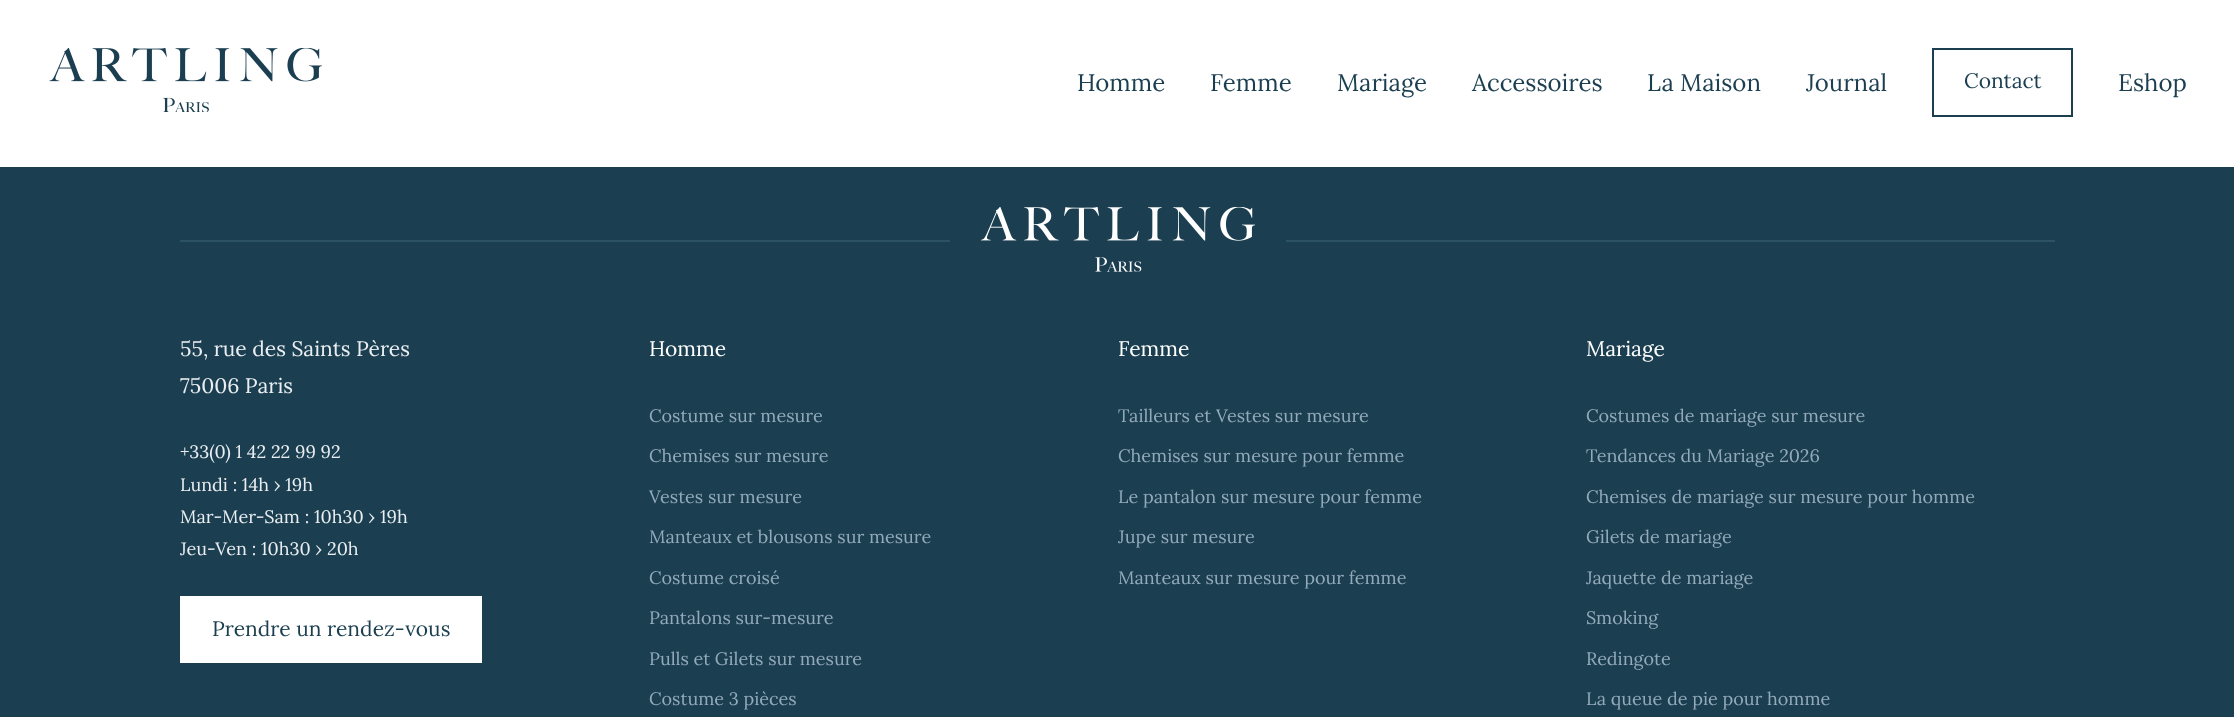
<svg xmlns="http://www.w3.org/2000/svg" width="2234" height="717">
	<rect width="100%" height="100%" fill="#1B3F50" />
	<rect x="0" y="0" width="2234" height="167" fill="#FFFFFF" />
	<image x="49" y="48" width="273" height="64" href="assets/img1.png" />
	<g font-family="Lora" font-size="24" fill="#1B3F50">
		<text x="1077" y="91">Homme</text>
		<text x="1210" y="91">Femme</text>
		<text x="1337" y="91">Mariage</text>
		<text x="1472" y="91">Accessoires</text>
		<text x="1647" y="91">La Maison</text>
		<text x="1806" y="91">Journal</text>
	</g>
	<rect x="1933" y="49" width="139" height="67" fill="none" stroke="#1B3F50" stroke-width="2" />
	<text x="1964" y="88" font-family="Lora" font-size="21" fill="#1B3F50">Contact</text>
	<text x="2118" y="91" font-family="Lora" font-size="24" fill="#1B3F50">Eshop</text>
	<rect x="180" y="240" width="1875" height="2" fill="#2B5265" />
	<rect x="950" y="240" width="336" height="2" fill="#1B3F50" />
	<image x="981" y="207" width="274" height="65" href="assets/img2.png" />
	<g font-family="Lora" font-size="21" fill="#EAEEF2">
		<text x="180" y="356">55, rue des Saints Pères</text>
		<text x="180" y="393">75006 Paris</text>
	</g>
	<g font-family="Lora" font-size="18" fill="#EAEEF2">
		<text x="180" y="458">+33(0) 1 42 22 99 92</text>
		<text x="180" y="491">Lundi : 14h › 19h</text>
		<text x="180" y="523">Mar-Mer-Sam : 10h30 › 19h</text>
		<text x="180" y="555">Jeu-Ven : 10h30 › 20h</text>
	</g>
	<rect x="180" y="596" width="302" height="67" fill="#FFFFFF" />
	<text x="212" y="636" font-family="Lora" font-size="21" fill="#1B3F50">Prendre un rendez-vous</text>
	<text x="649" y="356" font-family="Lora" font-size="21" fill="#FFFFFF">Homme</text>
	<g font-family="Lora" font-size="18" fill="#93AABB">
		<text x="649" y="422">Costume sur mesure</text>
		<text x="649" y="462">Chemises sur mesure</text>
		<text x="649" y="503">Vestes sur mesure</text>
		<text x="649" y="543">Manteaux et blousons sur mesure</text>
		<text x="649" y="584">Costume croisé</text>
		<text x="649" y="624">Pantalons sur-mesure</text>
		<text x="649" y="665">Pulls et Gilets sur mesure</text>
		<text x="649" y="705">Costume 3 pièces</text>
	</g>
	<text x="1118" y="356" font-family="Lora" font-size="21" fill="#FFFFFF">Femme</text>
	<g font-family="Lora" font-size="18" fill="#93AABB">
		<text x="1118" y="422">Tailleurs et Vestes sur mesure</text>
		<text x="1118" y="462">Chemises sur mesure pour femme</text>
		<text x="1118" y="503">Le pantalon sur mesure pour femme</text>
		<text x="1118" y="543">Jupe sur mesure</text>
		<text x="1118" y="584">Manteaux sur mesure pour femme</text>
	</g>
	<text x="1586" y="356" font-family="Lora" font-size="21" fill="#FFFFFF">Mariage</text>
	<g font-family="Lora" font-size="18" fill="#93AABB">
		<text x="1586" y="422">Costumes de mariage sur mesure</text>
		<text x="1586" y="462">Tendances du Mariage 2026</text>
		<text x="1586" y="503">Chemises de mariage sur mesure pour homme</text>
		<text x="1586" y="543">Gilets de mariage</text>
		<text x="1586" y="584">Jaquette de mariage</text>
		<text x="1586" y="624">Smoking</text>
		<text x="1586" y="665">Redingote</text>
		<text x="1586" y="705">La queue de pie pour homme</text>
	</g>
</svg>
